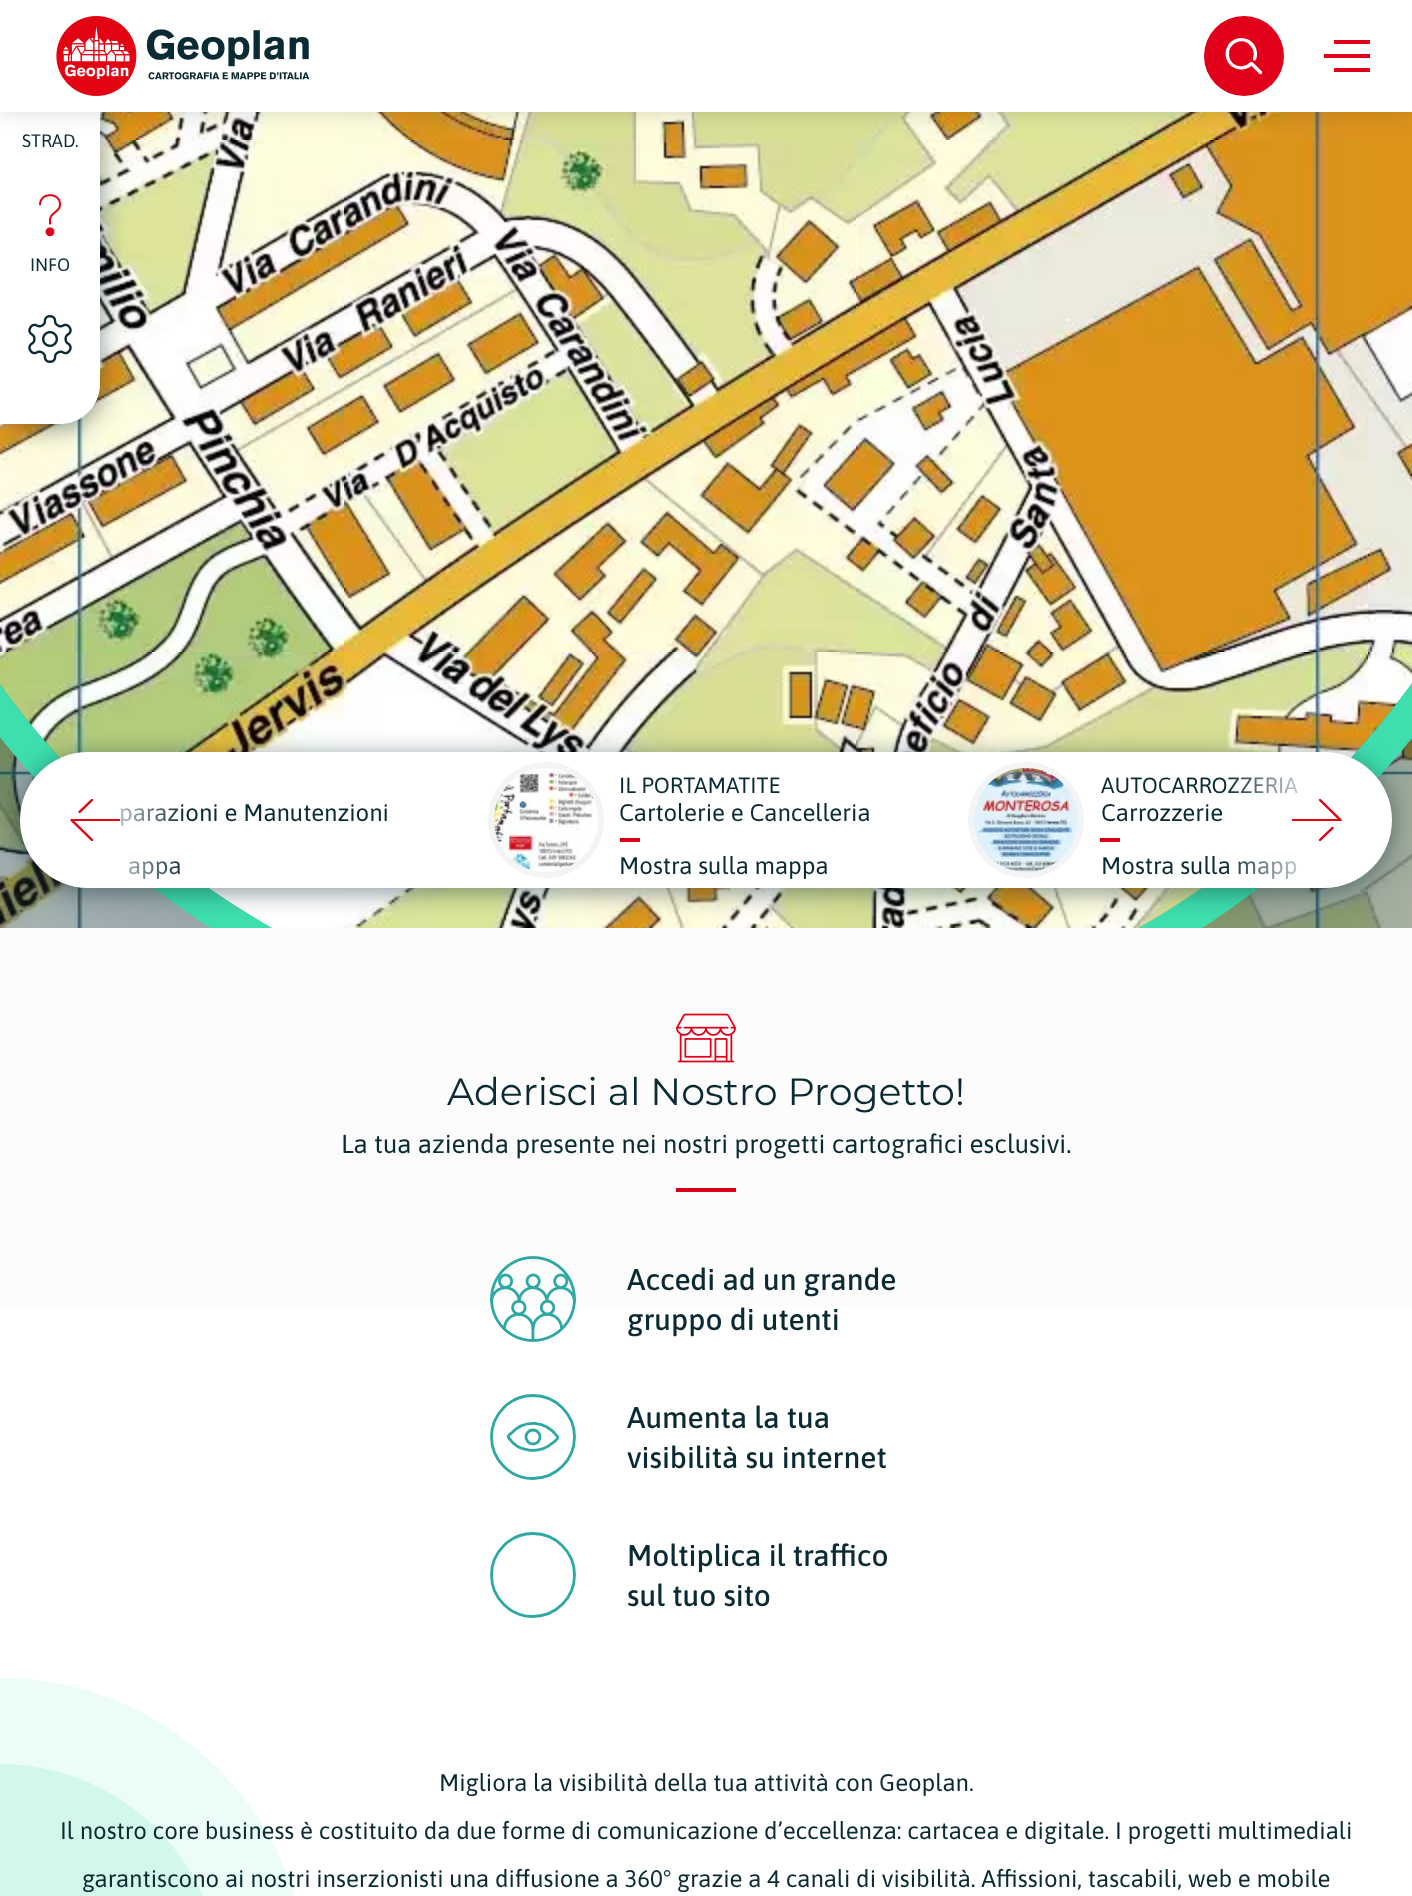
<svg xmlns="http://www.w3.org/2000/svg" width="1412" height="1896">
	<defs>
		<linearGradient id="g1" gradientUnits="userSpaceOnUse" x1="88" y1="820" x2="188" y2="820"><stop offset="0" stop-color="#FFFFFF" /><stop offset="1" stop-color="#FFFFFF" stop-opacity="0" /></linearGradient>
		<linearGradient id="g2" gradientUnits="userSpaceOnUse" x1="1324" y1="820" x2="1224" y2="820"><stop offset="0" stop-color="#FFFFFF" /><stop offset="1" stop-color="#FFFFFF" stop-opacity="0" /></linearGradient>
		<linearGradient id="g3" gradientUnits="userSpaceOnUse" x1="706" y1="928" x2="706" y2="1576"><stop offset="0" stop-color="#FCFCFC" /><stop offset="0.5" stop-color="#FCFCFC" /><stop offset="1" stop-color="#FFFFFF" /></linearGradient>
	</defs>
	<rect width="100%" height="100%" fill="#FFFFFF" />
	<image x="100" y="112" width="244" height="28" href="assets/img2.png" />
	<image x="344" y="112" width="512" height="28" href="assets/img3.png" />
	<image x="856" y="112" width="512" height="28" href="assets/img4.png" />
	<image x="1368" y="112" width="44" height="28" href="assets/img5.png" />
	<image x="0" y="140" width="344" height="512" href="assets/img6.png" />
	<image x="344" y="140" width="512" height="512" href="assets/img7.png" />
	<image x="856" y="140" width="512" height="512" href="assets/img8.png" />
	<image x="1368" y="140" width="44" height="512" href="assets/img9.png" />
	<rect x="0" y="-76" width="100" height="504" rx="40" fill="#0A2B33" fill-opacity="0.5" filter="blur(12px)" />
	<path d="M0-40H60C82-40 100-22 100 0V384C100 406 82 424 60 424H0Z" fill="#FFFFFF" />
	<rect x="0" y="0" width="1412" height="112" fill="#000000" fill-opacity="0.15" filter="blur(10px)" />
	<rect x="0" y="0" width="1412" height="112" fill="#FFFFFF" />
	<image x="56" y="16" width="254" height="80" href="assets/img1.png" />
	<circle cx="1244" cy="56" r="40" fill="#E1001A" />
	<path d="M1254.5 59C1257 52 1254 44.5 1247.5 41C1241 38 1233.5 40 1229.5 46C1225.5 52.5 1227 60.5 1232.5 65C1238.5 69.5 1246.5 68.5 1251.5 63.5M1251.5 63.5L1260.5 72.5" fill="none" stroke="#FFFFFF" stroke-width="3.3" stroke-linecap="round" stroke-linejoin="round" />
	<rect x="1334" y="40" width="36" height="4" fill="#E1001A" />
	<rect x="1324" y="54" width="46" height="4" fill="#E1001A" />
	<rect x="1334" y="68" width="36" height="4" fill="#E1001A" />
	<image x="0" y="652" width="344" height="276" href="assets/img10.png" />
	<image x="344" y="652" width="512" height="276" href="assets/img11.png" />
	<image x="856" y="652" width="512" height="276" href="assets/img12.png" />
	<image x="1368" y="652" width="44" height="276" href="assets/img13.png" />
	<image x="0" y="683" width="1412" height="245" href="assets/img14.png" />
	<text x="22" y="147" font-family="Asap" font-size="18" fill="#0A2B33">STRAD.</text>
	<image x="39" y="194" width="22" height="43" href="assets/img15.png" />
	<text x="30" y="271" font-family="Asap" font-size="18" fill="#0A2B33">INFO</text>
	<image x="28" y="315" width="44" height="48" href="assets/img16.png" />
	<rect x="20" y="756" width="1372" height="136" rx="68" fill="#0A2B33" fill-opacity="0.5" filter="blur(12px)" />
	<rect x="20" y="752" width="1372" height="136" rx="68" fill="#FFFFFF" />
	<path d="M92 800L79.5 812M71.5 820H119M71.5 820L92 840" fill="none" stroke="#E30413" stroke-width="2" stroke-linecap="round" stroke-linejoin="round" />
	<path d="M92 800L79.5 812M71.5 820H119M71.5 820L92 840" fill="none" stroke="#E30413" stroke-width="2" stroke-linecap="round" stroke-linejoin="round" />
	<g font-family="Asap" font-size="24" fill="#0A2B33">
		<text x="119" y="821">parazioni e Manutenzioni</text>
		<text x="128" y="874">appa</text>
	</g>
	<circle cx="546" cy="820" r="58" fill="#F3F4F5" />
	<image x="494" y="768" width="104" height="104" href="assets/img17.png" />
	<text x="619" y="793" font-family="Asap" font-size="22" fill="#0A2B33">IL PORTAMATITE</text>
	<text x="619" y="821" font-family="Asap" font-size="24" fill="#0A2B33">Cartolerie e Cancelleria</text>
	<rect x="620" y="840" width="20" height="2" fill="#E1001A" />
	<rect x="620" y="838" width="20" height="2" fill="#CB0017" />
	<text x="619" y="874" font-family="Asap" font-size="24" fill="#0A2B33">Mostra sulla mappa</text>
	<circle cx="1026" cy="820" r="58" fill="#F3F4F5" />
	<image x="974" y="768" width="104" height="104" href="assets/img18.png" />
	<text x="1101" y="793" font-family="Asap" font-size="22" fill="#0A2B33">AUTOCARROZZERIA</text>
	<text x="1101" y="821" font-family="Asap" font-size="24" fill="#0A2B33">Carrozzerie</text>
	<rect x="1100" y="840" width="20" height="2" fill="#E1001A" />
	<rect x="1100" y="838" width="20" height="2" fill="#CB0017" />
	<text x="1101" y="874" font-family="Asap" font-size="24" fill="#0A2B33">Mostra sulla mapp</text>
	<rect x="121" y="804" width="63" height="75" fill="url(#g1)" />
	<rect x="1226" y="777" width="72" height="102" fill="url(#g2)" />
	<path d="M1320 840L1332.5 828M1340.5 820H1293M1340.5 820L1320 800" fill="none" stroke="#E30413" stroke-width="2" stroke-linecap="round" stroke-linejoin="round" />
	<path d="M1320 840L1332.5 828M1340.5 820H1293M1340.5 820L1320 800" fill="none" stroke="#E30413" stroke-width="2" stroke-linecap="round" stroke-linejoin="round" />
	<rect x="0" y="928" width="1412" height="378" fill="url(#g3)" />
	<image x="676" y="1013" width="60" height="50" href="assets/img19.png" />
	<text x="447" y="1105" font-family="Montserrat" font-size="38" fill="#0A2B33">Aderisci al Nostro Progetto!</text>
	<text x="341" y="1153" font-family="Asap" font-size="26" fill="#0A2B33">La tua azienda presente nei nostri progetti cartografici esclusivi.</text>
	<rect x="676" y="1190" width="60" height="2" fill="#E1001A" />
	<rect x="676" y="1188" width="60" height="2" fill="#CB0017" />
	<image x="490" y="1256" width="86" height="86" href="assets/img20.png" />
	<g font-family="Asap" font-size="30" font-weight="500" fill="#0A2B33">
		<text x="627" y="1290">Accedi ad un grande</text>
		<text x="627" y="1330">gruppo di utenti</text>
	</g>
	<circle cx="533" cy="1437" r="41.5" fill="none" stroke="#2DA8A2" stroke-width="2.8" />
	<circle cx="533" cy="1437" r="7" fill="none" stroke="#2DA8A2" stroke-width="2.8" />
	<path d="M557.5 1436.5C559 1438.5 553.5 1442.5 552.5 1443C539.5 1454.5 518 1452.5 508.5 1437.5C507.5 1436 509.5 1434.5 511 1433.5C524.5 1418.5 545.5 1420.5 557.5 1436.5Z" fill="none" stroke="#2DA8A2" stroke-width="2.8" stroke-linecap="round" />
	<g font-family="Asap" font-size="30" font-weight="500" fill="#0A2B33">
		<text x="627" y="1428">Aumenta la tua</text>
		<text x="627" y="1468">visibilità su internet</text>
	</g>
	<circle cx="533" cy="1575" r="41.5" fill="none" stroke="#2DA8A2" stroke-width="2.8" />
	<g font-family="Asap" font-size="30" font-weight="500" fill="#0A2B33">
		<text x="627" y="1566">Moltiplica il traffico</text>
		<text x="627" y="1606">sul tuo sito</text>
	</g>
	<text x="439" y="1791" font-family="Asap" font-size="24" fill="#0A2B33">Migliora la visibilità della tua attività con Geoplan.</text>
	<path d="M0 1678C170 1678 308 1816 308 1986V1896C308 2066 170 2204 0 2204Z" fill="#ECFCF7" />
	<path d="M0 1764C122.5 1764 222 1863.5 222 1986V1896C222 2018.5 122.5 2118 0 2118Z" fill="#D2F8EC" />
	<g font-family="Asap" font-size="24" fill="#0A2B33">
		<text x="60" y="1839">Il nostro core business è costituito da due forme di comunicazione d’eccellenza: cartacea e digitale. I progetti multimediali</text>
		<text x="82" y="1887">garantiscono ai nostri inserzionisti una diffusione a 360° grazie a 4 canali di visibilità. Affissioni, tascabili, web e mobile</text>
	</g>
</svg>
